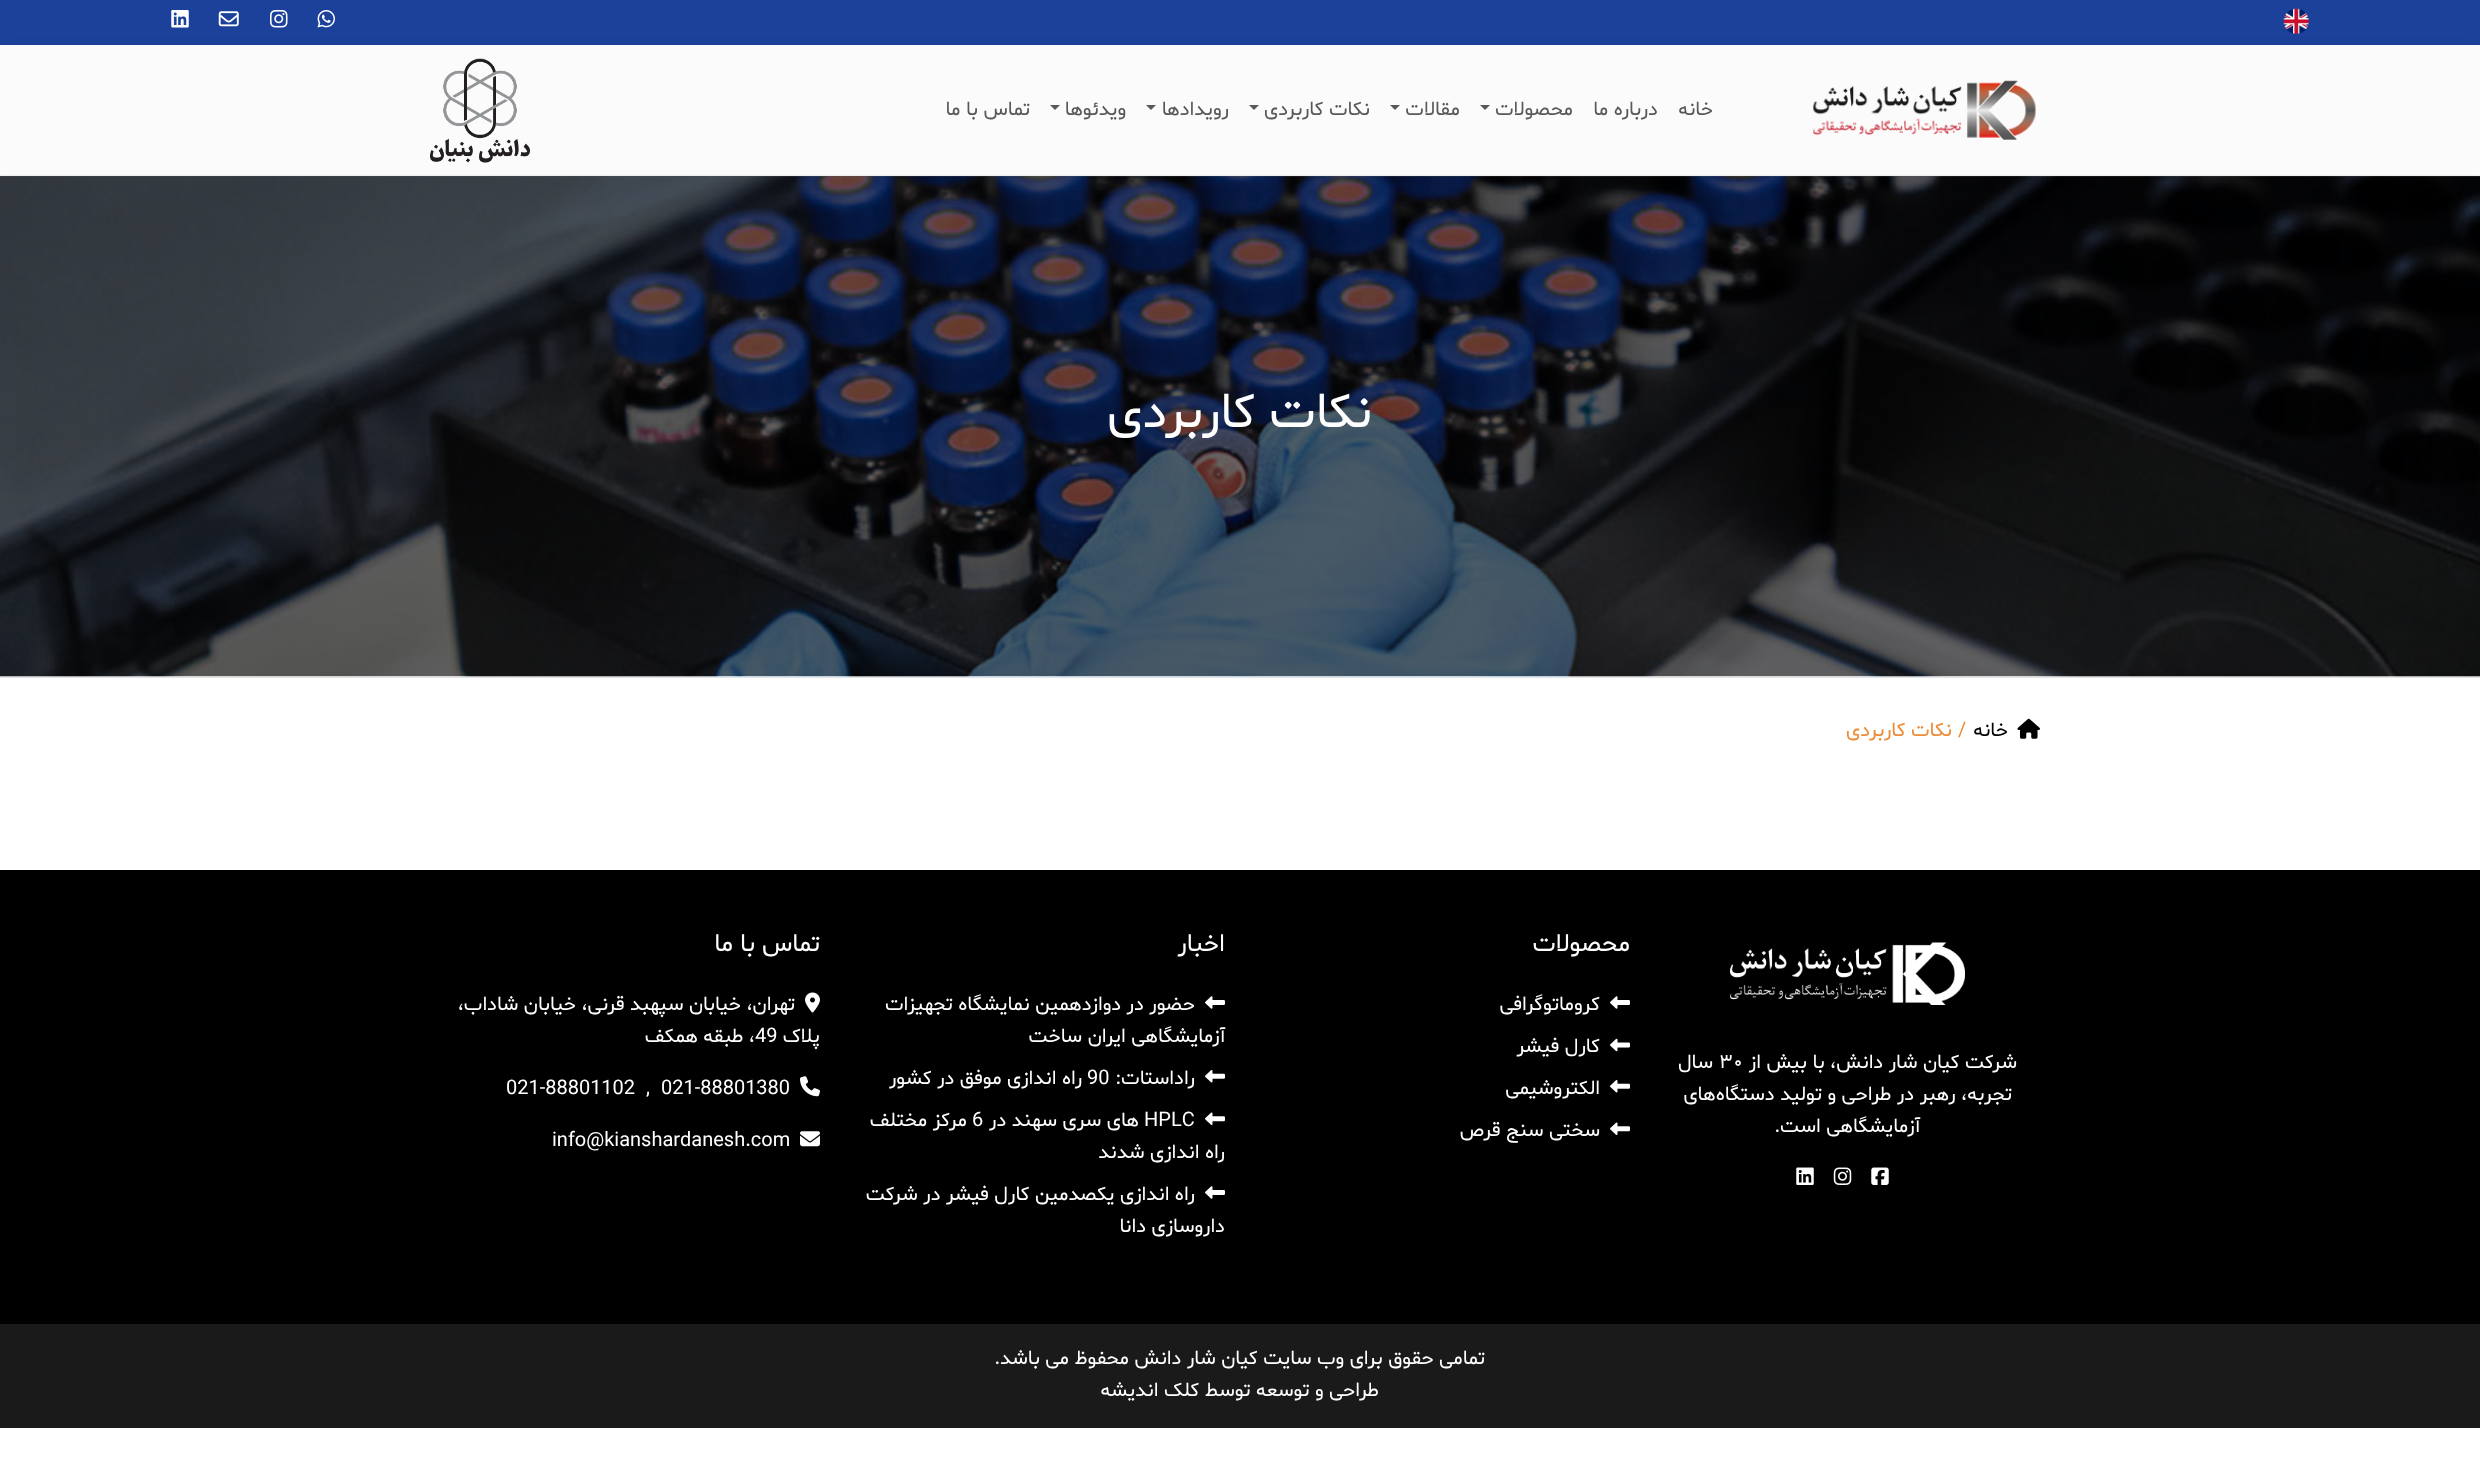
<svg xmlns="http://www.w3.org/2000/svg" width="2480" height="1460">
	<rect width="100%" height="100%" fill="#FFFFFF" />
	<rect x="0" y="0" width="2480" height="45" fill="#1B419B" />
	<image x="2283" y="8" width="26" height="26" href="assets/img1.png" />
	<image x="317" y="10" width="18" height="18" href="assets/img2.png" />
	<image x="270" y="10" width="18" height="18" href="assets/img3.png" />
	<image x="218" y="11" width="21" height="16" href="assets/img4.png" />
	<image x="171" y="10" width="18" height="18" href="assets/img5.png" />
	<rect x="0" y="48" width="2480" height="131" fill="#000000" fill-opacity="0.05" filter="blur(2.5px)" />
	<rect x="0" y="50" width="2480" height="131" fill="#000000" fill-opacity="0.07" filter="blur(7.5px)" />
	<rect x="0" y="45" width="2480" height="131" fill="#FBFBFB" />
	<image x="1813" y="80" width="223" height="60" href="assets/img6.png" />
	<g font-family="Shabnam" font-size="20" direction="rtl" fill="#585858">
		<text x="1713" y="115">خانه</text>
		<text x="1658" y="115">درباره ما</text>
		<text x="1573" y="115">محصولات</text>
	</g>
	<path d="M1480 105H1490L1485 110Z" fill="#585858" />
	<text x="1460" y="115" font-family="Shabnam" font-size="20" direction="rtl" fill="#585858">مقالات</text>
	<path d="M1390 105H1400L1395 110Z" fill="#585858" />
	<text x="1370" y="115" font-family="Shabnam" font-size="20" direction="rtl" fill="#585858">نکات کاربردی</text>
	<path d="M1249 105H1259L1254 110Z" fill="#585858" />
	<text x="1229" y="115" font-family="Shabnam" font-size="20" direction="rtl" fill="#585858">رویدادها</text>
	<path d="M1146 105H1156L1151 110Z" fill="#585858" />
	<text x="1126" y="115" font-family="Shabnam" font-size="20" direction="rtl" fill="#585858">ویدئوها</text>
	<path d="M1050 105H1060L1055 110Z" fill="#585858" />
	<text x="1030" y="115" font-family="Shabnam" font-size="20" direction="rtl" fill="#585858">تماس با ما</text>
	<image x="430" y="58" width="100" height="105" href="assets/img7.png" />
	<rect x="0" y="178" width="2480" height="500" fill="#000000" fill-opacity="0.1" filter="blur(0.5px)" />
	<rect x="0" y="176" width="2480" height="500" fill="#000000" fill-opacity="0.16" filter="blur(1px)" />
	<image x="0" y="176" width="2480" height="501" href="assets/img8.png" />
	<rect x="0" y="176" width="2480" height="500" fill="#000000" fill-opacity="0.6" />
	<text x="1372" y="427" font-family="Shabnam" font-size="50" direction="rtl" fill="#FFFFFF">نکات کاربردی</text>
	<image x="2017" y="718" width="23" height="21" href="assets/img9.png" />
	<text x="2008" y="736" font-family="Shabnam" font-size="20" direction="rtl" fill="#000000">خانه</text>
	<text x="1958" y="736" font-family="Shabnam" font-size="20" fill="#ED8C38">/</text>
	<text x="1952" y="736" font-family="Shabnam" font-size="20" direction="rtl" fill="#ED8C38">نکات کاربردی</text>
	<rect x="0" y="870" width="2480" height="454" fill="#000000" />
	<image x="1730" y="942" width="235" height="63" href="assets/img10.png" />
	<text x="2017" y="1068" font-family="Shabnam" font-size="20" direction="rtl" fill="#FFFFFF">شرکت کیان شار دانش، با بیش از</text>
	<text x="1719" y="1068" font-family="Shabnam" font-size="20" fill="#FFFFFF">۳۰</text>
	<g font-family="Shabnam" font-size="20" direction="rtl" fill="#FFFFFF">
		<text x="1713" y="1068">سال</text>
		<text x="2012" y="1100">تجربه، رهبر در طراحی و تولید دستگاه‌های</text>
		<text x="1920" y="1132">آزمایشگاهی است.</text>
	</g>
	<image x="1871" y="1167" width="18" height="18" href="assets/img11.png" />
	<image x="1833" y="1167" width="19" height="18" href="assets/img12.png" />
	<image x="1796" y="1167" width="18" height="18" href="assets/img13.png" />
	<text x="1630" y="951" font-family="Shabnam" font-size="25" direction="rtl" fill="#FFFFFF">محصولات</text>
	<image x="1610" y="996" width="20" height="13" href="assets/img14.png" />
	<text x="1600" y="1010" font-family="Shabnam" font-size="20" direction="rtl" fill="#FFFFFF">کروماتوگرافی</text>
	<image x="1610" y="1038" width="20" height="14" href="assets/img15.png" />
	<text x="1600" y="1052" font-family="Shabnam" font-size="20" direction="rtl" fill="#FFFFFF">کارل فیشر</text>
	<image x="1610" y="1080" width="20" height="13" href="assets/img16.png" />
	<text x="1600" y="1094" font-family="Shabnam" font-size="20" direction="rtl" fill="#FFFFFF">الکتروشیمی</text>
	<image x="1610" y="1122" width="20" height="13" href="assets/img17.png" />
	<text x="1600" y="1136" font-family="Shabnam" font-size="20" direction="rtl" fill="#FFFFFF">سختی سنج قرص</text>
	<text x="1225" y="951" font-family="Shabnam" font-size="25" direction="rtl" fill="#FFFFFF">اخبار</text>
	<image x="1205" y="996" width="20" height="13" href="assets/img14.png" />
	<g font-family="Shabnam" font-size="20" direction="rtl" fill="#FFFFFF">
		<text x="1195" y="1010">حضور در دوازدهمین نمایشگاه تجهیزات</text>
		<text x="1225" y="1042">آزمایشگاهی ایران ساخت</text>
	</g>
	<image x="1205" y="1070" width="20" height="13" href="assets/img16.png" />
	<text x="1195" y="1084" font-family="Shabnam" font-size="20" direction="rtl" fill="#FFFFFF">راداستات:</text>
	<text x="1087" y="1084" font-family="Shabnam" font-size="20" fill="#FFFFFF">90</text>
	<text x="1082" y="1084" font-family="Shabnam" font-size="20" direction="rtl" fill="#FFFFFF">راه اندازی موفق در کشور</text>
	<image x="1205" y="1112" width="20" height="13" href="assets/img17.png" />
	<text x="1144" y="1126" font-family="Shabnam" font-size="20" fill="#FFFFFF">HPLC</text>
	<text x="1139" y="1126" font-family="Shabnam" font-size="20" direction="rtl" fill="#FFFFFF">های سری سهند در</text>
	<text x="972" y="1126" font-family="Shabnam" font-size="20" fill="#FFFFFF">6</text>
	<g font-family="Shabnam" font-size="20" direction="rtl" fill="#FFFFFF">
		<text x="967" y="1126">مرکز مختلف</text>
		<text x="1225" y="1158">راه اندازی شدند</text>
	</g>
	<image x="1205" y="1186" width="20" height="13" href="assets/img14.png" />
	<g font-family="Shabnam" font-size="20" direction="rtl" fill="#FFFFFF">
		<text x="1195" y="1200">راه اندازی یکصدمین کارل فیشر در شرکت</text>
		<text x="1225" y="1232">داروسازی دانا</text>
	</g>
	<text x="820" y="951" font-family="Shabnam" font-size="25" direction="rtl" fill="#FFFFFF">تماس با ما</text>
	<image x="805" y="992" width="15" height="21" href="assets/img18.png" />
	<g font-family="Shabnam" font-size="20" direction="rtl" fill="#FFFFFF">
		<text x="795" y="1010">تهران، خیابان سپهبد قرنی، خیابان شاداب،</text>
		<text x="820" y="1042">پلاک</text>
	</g>
	<text x="755" y="1042" font-family="Shabnam" font-size="20" fill="#FFFFFF">49</text>
	<text x="755" y="1042" font-family="Shabnam" font-size="20" direction="rtl" fill="#FFFFFF">، طبقه همکف</text>
	<image x="800" y="1076" width="20" height="21" href="assets/img19.png" />
	<g font-family="Shabnam" font-size="20" fill="#FFFFFF">
		<text x="661" y="1094">021-88801380</text>
		<text x="646" y="1094">,</text>
		<text x="506" y="1094">021-88801102</text>
	</g>
	<image x="800" y="1131" width="20" height="16" href="assets/img20.png" />
	<text x="552" y="1146" font-family="Shabnam" font-size="20" fill="#FFFFFF">info@kianshardanesh.com</text>
	<rect x="0" y="1324" width="2480" height="104" fill="#1B1A1B" />
	<g font-family="Shabnam" font-size="20" direction="rtl" fill="#FFFFFF">
		<text x="1485" y="1364">تمامی حقوق برای وب سایت کیان شار دانش محفوظ می باشد.</text>
		<text x="1379" y="1396">طراحی و توسعه توسط کلک اندیشه</text>
	</g>
</svg>
